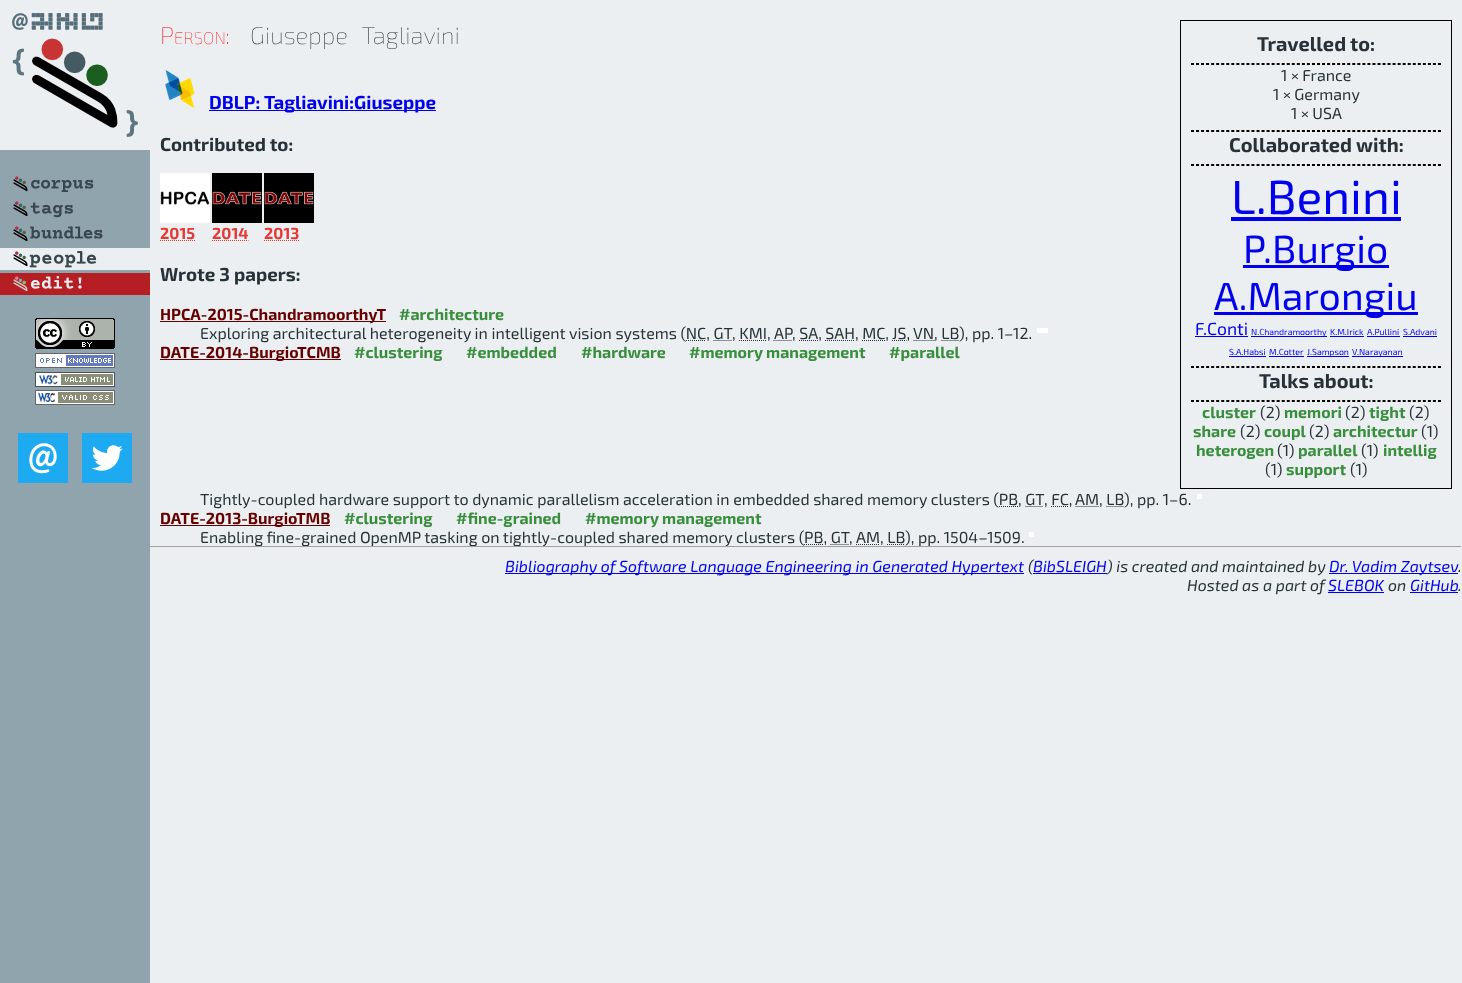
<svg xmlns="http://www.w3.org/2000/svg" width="1462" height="983">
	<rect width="100%" height="100%" fill="#ECEFF1" />
	<rect x="0" y="150" width="150" height="833" fill="#90A4AE" />
	<image x="0" y="0" width="150" height="150" href="assets/img1.png" />
	<image x="13" y="176" width="81" height="16" href="assets/img2.png" />
	<image x="13" y="201" width="60" height="17" href="assets/img3.png" />
	<image x="13" y="226" width="90" height="16" href="assets/img4.png" />
	<image x="0" y="248" width="150" height="22" href="assets/img5.png" />
	<image x="0" y="273" width="150" height="22" href="assets/img6.png" />
	<image x="35" y="318" width="80" height="31" href="assets/img7.png" />
	<image x="35" y="353" width="80" height="15" href="assets/img8.png" />
	<image x="35" y="372" width="80" height="15" href="assets/img9.png" />
	<image x="35" y="390" width="80" height="15" href="assets/img10.png" />
	<image x="18" y="433" width="50" height="50" href="assets/img11.png" />
	<image x="82" y="433" width="50" height="50" href="assets/img12.png" />
	<text x="160" y="44" font-family="'Exo 2'" font-size="24" font-weight="100" fill="#FF0000">P</text>
	<text x="174" y="44" font-family="'Exo 2'" font-size="17" font-weight="100" fill="#FF0000">ERSON</text>
	<text x="225" y="44" font-family="'Exo 2'" font-size="24" font-weight="100" fill="#FF0000">:</text>
	<text x="250" y="44" word-spacing="9" font-family="'Exo 2'" font-size="24" font-weight="100" fill="#263238">Giuseppe Tagliavini</text>
	<rect x="1180.5" y="20.5" width="271" height="468" fill="none" stroke="#000000" />
	<text x="1257" y="51" font-family="'Exo 2'" font-size="20" font-weight="700" fill="#263238">Travelled to:</text>
	<path d="M1191 63.5H1441" fill="none" stroke="#000000" stroke-dasharray="3 2.04" />
	<rect x="1440" y="63" width="1" height="2" fill="#000000" />
	<path d="M1191 64.5H1441" fill="none" stroke="#000000" stroke-dasharray="3 2.04" />
	<g font-family="'Exo 2'" font-size="16" fill="#263238">
		<text x="1281" y="81">1 × France</text>
		<text x="1273" y="100">1 × Germany</text>
		<text x="1291" y="119">1 × USA</text>
	</g>
	<path d="M1191 130.5H1441" fill="none" stroke="#000000" stroke-dasharray="3 2.04" />
	<rect x="1440" y="130" width="1" height="2" fill="#000000" />
	<path d="M1191 131.5H1441" fill="none" stroke="#000000" stroke-dasharray="3 2.04" />
	<text x="1229" y="152" font-family="'Exo 2'" font-size="20" font-weight="700" fill="#263238">Collaborated with:</text>
	<path d="M1191 164.5H1441" fill="none" stroke="#000000" stroke-dasharray="3 2.04" />
	<rect x="1440" y="164" width="1" height="2" fill="#000000" />
	<path d="M1191 165.5H1441" fill="none" stroke="#000000" stroke-dasharray="3 2.04" />
	<text x="1231" y="214" font-family="'Exo 2'" font-size="48" fill="#0000EE">L.Benini</text>
	<rect x="1231" y="217" width="170" height="4" fill="#0000EE" />
	<rect x="1243" y="265" width="146" height="3" fill="#0000EE" />
	<text x="1243" y="263" font-family="'Exo 2'" font-size="39.25" fill="#0000EE">P.Burgio</text>
	<rect x="1214" y="312" width="204" height="3" fill="#0000EE" />
	<text x="1214" y="310" font-family="'Exo 2'" font-size="39.25" fill="#0000EE">A.Marongiu</text>
	<text x="1195" y="335" font-family="'Exo 2'" font-size="17.5" fill="#0000EE">F.Conti</text>
	<rect x="1195" y="336" width="53" height="1" fill="#0000EE" />
	<rect x="1251" y="336" width="76" height="1" fill="#0000EE" />
	<g font-family="'Exo 2'" font-size="8.75" fill="#0000EE">
		<text x="1251" y="335">N.Chandramoorthy</text>
		<text x="1330" y="335">K.M.Irick</text>
	</g>
	<rect x="1330" y="336" width="34" height="1" fill="#0000EE" />
	<text x="1367" y="335" font-family="'Exo 2'" font-size="8.75" fill="#0000EE">A.Pullini</text>
	<rect x="1367" y="336" width="33" height="1" fill="#0000EE" />
	<text x="1403" y="335" font-family="'Exo 2'" font-size="8.75" fill="#0000EE">S.Advani</text>
	<rect x="1403" y="336" width="34" height="1" fill="#0000EE" />
	<text x="1229" y="355" font-family="'Exo 2'" font-size="8.75" fill="#0000EE">S.A.Habsi</text>
	<rect x="1229" y="356" width="37" height="1" fill="#0000EE" />
	<text x="1269" y="355" font-family="'Exo 2'" font-size="8.75" fill="#0000EE">M.Cotter</text>
	<rect x="1269" y="356" width="35" height="1" fill="#0000EE" />
	<rect x="1307" y="356" width="42" height="1" fill="#0000EE" />
	<text x="1307" y="355" font-family="'Exo 2'" font-size="8.75" fill="#0000EE">J.Sampson</text>
	<rect x="1352" y="356" width="51" height="1" fill="#0000EE" />
	<text x="1352" y="355" font-family="'Exo 2'" font-size="8.75" fill="#0000EE">V.Narayanan</text>
	<path d="M1191 366.5H1441" fill="none" stroke="#000000" stroke-dasharray="3 2.04" />
	<rect x="1440" y="366" width="1" height="2" fill="#000000" />
	<path d="M1191 367.5H1441" fill="none" stroke="#000000" stroke-dasharray="3 2.04" />
	<text x="1259" y="388" font-family="'Exo 2'" font-size="20" font-weight="700" fill="#263238">Talks about:</text>
	<path d="M1191 400.5H1441" fill="none" stroke="#000000" stroke-dasharray="3 2.04" />
	<rect x="1440" y="400" width="1" height="2" fill="#000000" />
	<path d="M1191 401.5H1441" fill="none" stroke="#000000" stroke-dasharray="3 2.04" />
	<text x="1202" y="418" font-family="'Exo 2'" font-size="16" font-weight="700" fill="#388E3C">cluster</text>
	<text x="1260" y="418" font-family="'Exo 2'" font-size="16" fill="#263238">(2)</text>
	<text x="1284" y="418" font-family="'Exo 2'" font-size="16" font-weight="700" fill="#388E3C">memori</text>
	<text x="1345" y="418" font-family="'Exo 2'" font-size="16" fill="#263238">(2)</text>
	<text x="1369" y="418" font-family="'Exo 2'" font-size="16" font-weight="700" fill="#388E3C">tight</text>
	<text x="1409" y="418" font-family="'Exo 2'" font-size="16" fill="#263238">(2)</text>
	<text x="1193" y="437" font-family="'Exo 2'" font-size="16" font-weight="700" fill="#388E3C">share</text>
	<text x="1240" y="437" font-family="'Exo 2'" font-size="16" fill="#263238">(2)</text>
	<text x="1264" y="437" font-family="'Exo 2'" font-size="16" font-weight="700" fill="#388E3C">coupl</text>
	<text x="1309" y="437" font-family="'Exo 2'" font-size="16" fill="#263238">(2)</text>
	<text x="1333" y="437" font-family="'Exo 2'" font-size="16" font-weight="700" fill="#388E3C">architectur</text>
	<text x="1421" y="437" font-family="'Exo 2'" font-size="16" fill="#263238">(1)</text>
	<text x="1196" y="456" font-family="'Exo 2'" font-size="16" font-weight="700" fill="#388E3C">heterogen</text>
	<text x="1277" y="456" font-family="'Exo 2'" font-size="16" fill="#263238">(1)</text>
	<text x="1298" y="456" font-family="'Exo 2'" font-size="16" font-weight="700" fill="#388E3C">parallel</text>
	<text x="1361" y="456" font-family="'Exo 2'" font-size="16" fill="#263238">(1)</text>
	<text x="1383" y="456" font-family="'Exo 2'" font-size="16" font-weight="700" fill="#388E3C">intellig</text>
	<text x="1265" y="475" font-family="'Exo 2'" font-size="16" fill="#263238">(1)</text>
	<text x="1286" y="475" font-family="'Exo 2'" font-size="16" font-weight="700" fill="#388E3C">support</text>
	<text x="1350" y="475" font-family="'Exo 2'" font-size="16" fill="#263238">(1)</text>
	<image x="165" y="70" width="30" height="38" href="assets/img13.png" />
	<rect x="209" y="110" width="227" height="1" fill="#0000EE" />
	<text x="209" y="109" font-family="'Exo 2'" font-size="18.75" font-weight="700" fill="#0000EE">DBLP: Tagliavini:Giuseppe</text>
	<text x="160" y="151" font-family="'Exo 2'" font-size="18.75" font-weight="700" fill="#263238">Contributed to:</text>
	<image x="160" y="173" width="50" height="50" href="assets/img14.png" />
	<text x="160" y="239" font-family="'Exo 2'" font-size="16" font-weight="700" fill="#E53935">2015</text>
	<path d="M160 240.5H195" fill="none" stroke="#E53935" stroke-dasharray="1 1" />
	<image x="212" y="173" width="50" height="50" href="assets/img15.png" />
	<text x="212" y="239" font-family="'Exo 2'" font-size="16" font-weight="700" fill="#E53935">2014</text>
	<path d="M212 240.5H248.5" fill="none" stroke="#E53935" stroke-dasharray="1 1" />
	<image x="264" y="173" width="50" height="50" href="assets/img15.png" />
	<text x="264" y="239" font-family="'Exo 2'" font-size="16" font-weight="700" fill="#E53935">2013</text>
	<path d="M264 240.5H299.5" fill="none" stroke="#E53935" stroke-dasharray="1 1" />
	<text x="160" y="281" font-family="'Exo 2'" font-size="18.75" font-weight="700" fill="#263238">Wrote 3 papers:</text>
	<rect x="160" y="321" width="226" height="1" fill="#660000" />
	<text x="160" y="320" font-family="'Exo 2'" font-size="16" font-weight="700" fill="#660000">HPCA-2015-ChandramoorthyT</text>
	<text x="399" y="320" font-family="'Exo 2'" font-size="16" font-weight="700" fill="#388E3C">#architecture</text>
	<g font-family="'Exo 2'" font-size="16" fill="#263238">
		<text x="200" y="339">Exploring architectural heterogeneity in intelligent vision systems (NC, GT</text>
		<text x="732" y="339">, KMI,</text>
		<text x="774" y="339">AP</text>
		<text x="792" y="339">, SA, SAH, MC,</text>
	</g>
	<path d="M862 340.5H885M892 340.5H906.5" fill="none" stroke="#263238" stroke-dasharray="1 1" />
	<text x="892" y="339" font-family="'Exo 2'" font-size="16" fill="#263238">JS,</text>
	<path d="M913.5 340.5H934.5" fill="none" stroke="#263238" stroke-dasharray="1 1" />
	<g font-family="'Exo 2'" font-size="16" fill="#263238">
		<text x="913" y="339">VN, LB</text>
		<text x="959" y="339">), pp. 1–12.</text>
	</g>
	<path d="M686 340.5H706M713.5 340.5H732" fill="none" stroke="#263238" stroke-dasharray="1 1" />
	<path d="M739 340.5H767M773.5 340.5H792" fill="none" stroke="#263238" stroke-dasharray="1 1" />
	<path d="M799 340.5H818M825 340.5H855" fill="none" stroke="#263238" stroke-dasharray="1 1" />
	<path d="M941.5 340.5H959" fill="none" stroke="#263238" stroke-dasharray="1 1" />
	<rect x="1037" y="328" width="11" height="5" fill="#FFFFFF" />
	<rect x="160" y="359" width="181" height="1" fill="#660000" />
	<text x="160" y="358" font-family="'Exo 2'" font-size="16" font-weight="700" fill="#660000">DATE-2014-BurgioTCMB</text>
	<g font-family="'Exo 2'" font-size="16" font-weight="700" fill="#388E3C">
		<text x="354" y="358">#clustering</text>
		<text x="466" y="358">#embedded</text>
		<text x="581" y="358">#hardware</text>
		<text x="689" y="358">#memory management</text>
		<text x="889" y="358">#parallel</text>
	</g>
	<g font-family="'Exo 2'" font-size="16" fill="#263238">
		<text x="200" y="505">Tightly-coupled hardware support to dynamic parallelism acceleration in embedded shared memory clusters (PB, GT</text>
		<text x="1044" y="505">, FC,</text>
	</g>
	<path d="M1051 506.5H1068.5M1075.5 506.5H1099.5" fill="none" stroke="#263238" stroke-dasharray="1 1" />
	<g font-family="'Exo 2'" font-size="16" fill="#263238">
		<text x="1075" y="505">AM, LB</text>
		<text x="1124" y="505">), pp. 1–6.</text>
	</g>
	<path d="M999 506.5H1018M1025.5 506.5H1043.5" fill="none" stroke="#263238" stroke-dasharray="1 1" />
	<path d="M1106.5 506.5H1124" fill="none" stroke="#263238" stroke-dasharray="1 1" />
	<rect x="1197" y="494" width="5" height="5" fill="#FFFFFF" />
	<rect x="160" y="525" width="170" height="1" fill="#660000" />
	<text x="160" y="524" font-family="'Exo 2'" font-size="16" font-weight="700" fill="#660000">DATE-2013-BurgioTMB</text>
	<g font-family="'Exo 2'" font-size="16" font-weight="700" fill="#388E3C">
		<text x="344" y="524">#clustering</text>
		<text x="456" y="524">#fine-grained</text>
		<text x="585" y="524">#memory management</text>
	</g>
	<g font-family="'Exo 2'" font-size="16" fill="#263238">
		<text x="200" y="543">Enabling fine-grained OpenMP tasking on tightly-coupled shared memory clusters (PB, GT</text>
		<text x="849" y="543">,</text>
	</g>
	<path d="M856 544.5H880" fill="none" stroke="#263238" stroke-dasharray="1 1" />
	<g font-family="'Exo 2'" font-size="16" fill="#263238">
		<text x="856" y="543">AM, LB</text>
		<text x="905" y="543">), pp. 1504–1509.</text>
	</g>
	<path d="M804 544.5H823.5M830.5 544.5H849" fill="none" stroke="#263238" stroke-dasharray="1 1" />
	<path d="M887 544.5H904.5" fill="none" stroke="#263238" stroke-dasharray="1 1" />
	<rect x="1029" y="532" width="5" height="5" fill="#FFFFFF" />
	<rect x="150" y="546" width="1312" height="1" fill="#9F9F9F" />
	<rect x="1461" y="546" width="1" height="2" fill="#EEEEEE" />
	<rect x="150" y="547" width="1312" height="1" fill="#EEEEEE" />
	<rect x="505" y="573" width="519" height="1" fill="#0000EE" />
	<text x="505" y="572" font-family="'Exo 2'" font-size="16" font-style="italic" fill="#0000EE">Bibliography of Software Language Engineering in Generated Hypertext</text>
	<text x="1028" y="572" font-family="'Exo 2'" font-size="16" font-style="italic" fill="#263238">(</text>
	<text x="1033" y="572" font-family="'Exo 2'" font-size="16" font-style="italic" fill="#0000EE">BibSLEIGH</text>
	<rect x="1033" y="573" width="74" height="1" fill="#0000EE" />
	<text x="1107" y="572" font-family="'Exo 2'" font-size="16" font-style="italic" fill="#263238">) is created and maintained by</text>
	<rect x="1329" y="573" width="129" height="1" fill="#0000EE" />
	<text x="1329" y="572" font-family="'Exo 2'" font-size="16" font-style="italic" fill="#0000EE">Dr. Vadim Zaytsev</text>
	<g font-family="'Exo 2'" font-size="16" font-style="italic" fill="#263238">
		<text x="1458" y="572">.</text>
		<text x="1187" y="591">Hosted as a part of</text>
	</g>
	<rect x="1328" y="592" width="56" height="1" fill="#0000EE" />
	<text x="1328" y="591" font-family="'Exo 2'" font-size="16" font-style="italic" fill="#0000EE">SLEBOK</text>
	<text x="1388" y="591" font-family="'Exo 2'" font-size="16" font-style="italic" fill="#263238">on</text>
	<text x="1410" y="591" font-family="'Exo 2'" font-size="16" font-style="italic" fill="#0000EE">GitHub</text>
	<text x="1458" y="591" font-family="'Exo 2'" font-size="16" font-style="italic" fill="#263238">.</text>
	<rect x="1410" y="592" width="48" height="1" fill="#0000EE" />
</svg>
